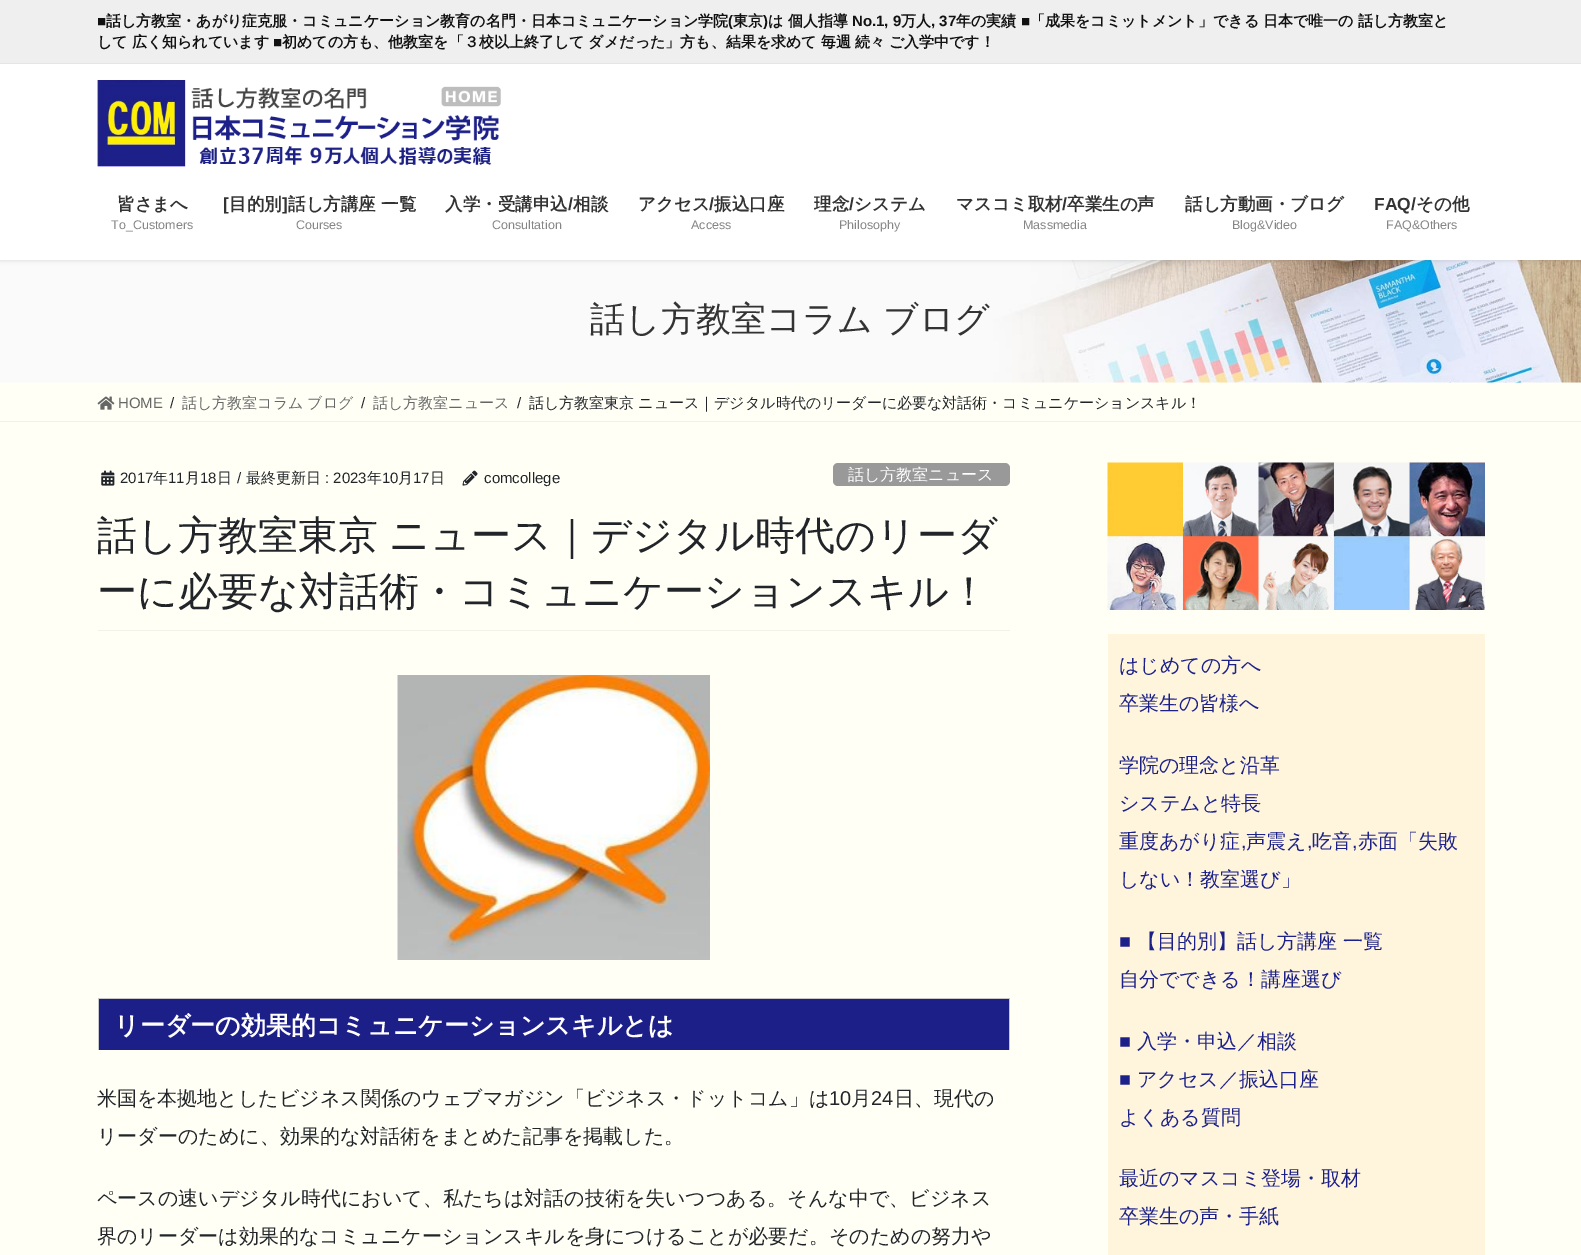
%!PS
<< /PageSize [1581 1255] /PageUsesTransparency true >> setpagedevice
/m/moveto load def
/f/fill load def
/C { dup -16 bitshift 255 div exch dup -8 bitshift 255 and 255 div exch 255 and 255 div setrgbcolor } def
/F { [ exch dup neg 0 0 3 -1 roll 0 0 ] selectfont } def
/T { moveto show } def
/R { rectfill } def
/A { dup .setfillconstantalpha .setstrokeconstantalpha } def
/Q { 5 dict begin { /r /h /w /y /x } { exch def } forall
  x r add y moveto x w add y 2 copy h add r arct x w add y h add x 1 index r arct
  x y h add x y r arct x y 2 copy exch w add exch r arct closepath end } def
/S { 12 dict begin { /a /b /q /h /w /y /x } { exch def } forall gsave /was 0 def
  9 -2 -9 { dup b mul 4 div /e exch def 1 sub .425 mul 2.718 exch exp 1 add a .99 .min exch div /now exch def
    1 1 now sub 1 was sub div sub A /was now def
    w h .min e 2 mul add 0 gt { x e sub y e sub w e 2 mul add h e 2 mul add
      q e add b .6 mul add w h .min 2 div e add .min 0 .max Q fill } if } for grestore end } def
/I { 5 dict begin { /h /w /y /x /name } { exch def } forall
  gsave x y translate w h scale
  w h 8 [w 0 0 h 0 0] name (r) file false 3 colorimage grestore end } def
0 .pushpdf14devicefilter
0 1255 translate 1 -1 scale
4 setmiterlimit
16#FFFFF6 C
0 0 1581 1255 R
(2.rgb) 0 260 1581 123 I
16#000000 C
0 -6 1581 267 0 2 .1 S
16#FFFFFF C
0 64 1581 196 R
16#EFEFEF C
0 0 1581 63 R
16#E5E5E5 C
0 63 1581 1 R
/LiberationSans-Bold 15 F
16#111111 C
(■) 97 26 T
/WenQuanYiZenHei-Bold 15 F
(話し方教室・あがり症克服・コミュニケーション教育の名門・日本コミュニケーション学院) 106 26 T
/LiberationSans-Bold 15 F
(\() 728 26 T
/WenQuanYiZenHei-Bold 15 F
(東京) 733 26 T
/LiberationSans-Bold 15 F
(\)) 763 26 T
/WenQuanYiZenHei-Bold 15 F
(は) 768 26 T
(個人指導) 788 26 T
/LiberationSans-Bold 15 F
(No.1, 9) 852 26 T
/WenQuanYiZenHei-Bold 15 F
(万人) 901 26 T
/LiberationSans-Bold 15 F
(, 37) 931 26 T
/WenQuanYiZenHei-Bold 15 F
(年の実績) 956 26 T
/LiberationSans-Bold 15 F
(■) 1021 26 T
/WenQuanYiZenHei-Bold 15 F
(「成果をコミットメント」できる) 1030 26 T
(日本で唯一の) 1263 26 T
(話し方教室と) 1358 26 T
97 47 m -.5 0 32 (して 広く知られています) widthshow
/LiberationSans-Bold 15 F
(■) 273 47 T
/WenQuanYiZenHei-Bold 15 F
282 47 m -.5 0 32 (初めての方も、他教室を「３校以上終了して ダメだった」方も、結果を求めて 毎週 続々 ご入学中です！) widthshow
(1.rgb) 97 80 404 87 I
/WenQuanYiZenHei-Bold 17.5 F
16#333333 C
(皆さまへ) 117 210 T
/LiberationSans-Regular 12.5 F
16#858585 C
(To_Customers) 111 229 T
/LiberationSans-Bold 17.5 F
16#333333 C
([) 223 210 T
/WenQuanYiZenHei-Bold 17.5 F
(目的別) 229 210 T
/LiberationSans-Bold 17.5 F
(]) 282 210 T
/WenQuanYiZenHei-Bold 17.5 F
(話し方講座 一覧) 288 210 T
/LiberationSans-Regular 12.5 F
16#858585 C
(Courses) 296 229 T
/WenQuanYiZenHei-Bold 17.5 F
16#333333 C
(入学・受講申込) 445 210 T
/LiberationSans-Bold 17.5 F
(/) 568 210 T
/WenQuanYiZenHei-Bold 17.5 F
(相談) 573 210 T
/LiberationSans-Regular 12.5 F
16#858585 C
(Consultation) 492 229 T
/WenQuanYiZenHei-Bold 17.5 F
16#333333 C
(アクセス) 638 210 T
/LiberationSans-Bold 17.5 F
(/) 709 210 T
/WenQuanYiZenHei-Bold 17.5 F
(振込口座) 714 210 T
/LiberationSans-Regular 12.5 F
16#858585 C
(Access) 691 229 T
/WenQuanYiZenHei-Bold 17.5 F
16#333333 C
(理念) 814 210 T
/LiberationSans-Bold 17.5 F
(/) 849 210 T
/WenQuanYiZenHei-Bold 17.5 F
(システム) 854 210 T
/LiberationSans-Regular 12.5 F
16#858585 C
(Philosophy) 839 229 T
/WenQuanYiZenHei-Bold 17.5 F
16#333333 C
(マスコミ取材) 956 210 T
/LiberationSans-Bold 17.5 F
(/) 1062 210 T
/WenQuanYiZenHei-Bold 17.5 F
(卒業生の声) 1067 210 T
/LiberationSans-Regular 12.5 F
16#858585 C
(Massmedia) 1023 229 T
/WenQuanYiZenHei-Bold 17.5 F
16#333333 C
(話し方動画・ブログ) 1185 210 T
/LiberationSans-Regular 12.5 F
16#858585 C
(Blog&Video) 1232 229 T
/LiberationSans-Bold 17.5 F
16#333333 C
(FAQ/) 1374 210 T
/WenQuanYiZenHei-Bold 17.5 F
(その他) 1416 210 T
/LiberationSans-Regular 12.5 F
16#858585 C
(FAQ&Others) 1386 229 T
/WenQuanYiZenHei-Medium 35 F
16#333333 C
590 331 m -1 0 32 (話し方教室コラム ブログ) widthshow
16#F2F2EA C
0 421 1581 1 R
(3.rgb) 97 396 18 14 I
/LiberationSans-Regular 15 F
16#666666 C
(HOME) 118 408 T
16#212529 C
(/) 170 408 T
/WenQuanYiZenHei-Medium 15 F
16#666666 C
182 408 m -.5 0 32 (話し方教室コラム ブログ) widthshow
/LiberationSans-Regular 15 F
16#212529 C
(/) 361 408 T
/WenQuanYiZenHei-Medium 15 F
16#666666 C
(話し方教室ニュース) 373 408 T
/LiberationSans-Regular 15 F
16#212529 C
(/) 517 408 T
/WenQuanYiZenHei-Medium 15 F
529 408 m -.5 0 32 (話し方教室東京 ニュース｜デジタル時代のリーダーに必要な対話術・コミュニケーションスキル！) widthshow
16#F2F2EA C
98 630 912 1 R
(4.rgb) 101 470 14 16 I
/LiberationSans-Regular 15 F
16#212529 C
(2017) 120 483 T
/WenQuanYiZenHei-Medium 15 F
(年) 153 483 T
/LiberationSans-Regular 15 F
(11) 168 483 T
/WenQuanYiZenHei-Medium 15 F
(月) 185 483 T
/LiberationSans-Regular 15 F
(18) 200 483 T
/WenQuanYiZenHei-Medium 15 F
(日) 217 483 T
/LiberationSans-Regular 15 F
(/) 237 483 T
/WenQuanYiZenHei-Medium 15 F
(最終更新日) 246 483 T
/LiberationSans-Regular 15 F
(: 2023) 325 483 T
/WenQuanYiZenHei-Medium 15 F
(年) 367 483 T
/LiberationSans-Regular 15 F
(10) 382 483 T
/WenQuanYiZenHei-Medium 15 F
(月) 398 483 T
/LiberationSans-Regular 15 F
(17) 413 483 T
/WenQuanYiZenHei-Medium 15 F
(日) 430 483 T
(5.rgb) 462 470 16 16 I
/LiberationSans-Regular 15 F
(comcollege) 484 483 T
16#999999 C
833 463 177 23 5 Q f
/WenQuanYiZenHei-Medium 16 F
16#FFFFFF C
(話し方教室ニュース) 848 480 T
/WenQuanYiZenHei-Medium 40 F
16#212529 C
97 549 m -1 0 32 (話し方教室東京 ニュース｜デジタル時代のリーダ) widthshow
(ーに必要な対話術・コミュニケーションスキル！) 97 605 T
(6.rgb) 397 675 313 285 I
16#1D1F89 C
99 999 910 51 R
16#C8C8C8 C
98 998 912 1 R
1009 998 1 52 R
98 998 1 52 R
/WenQuanYiZenHei-Bold 25 F
16#FFFFFF C
(リーダーの効果的コミュニケーションスキルとは) 114 1034 T
/WenQuanYiZenHei-Medium 20 F
16#212529 C
(米国を本拠地としたビジネス関係のウェブマガジン「ビジネス・ドットコム」は) 97 1105 T
/LiberationSans-Regular 20 F
(10) 829 1105 T
/WenQuanYiZenHei-Medium 20 F
(月) 851 1105 T
/LiberationSans-Regular 20 F
(24) 871 1105 T
/WenQuanYiZenHei-Medium 20 F
(日、現代の) 894 1105 T
(リーダーのために、効果的な対話術をまとめた記事を掲載した。) 97 1143 T
(ペースの速いデジタル時代において、私たちは対話の技術を失いつつある。そんな中で、ビジネス) 97 1205 T
(界のリーダーは効果的なコミュニケーションスキルを身につけることが必要だ。そのための努力や) 97 1243 T
(7.rgb) 1107 462 378 148 I
16#FFF5DC C
1108 634 377 621 R
16#1C2189 C
(はじめての方へ) 1119 672 T
(卒業生の皆様へ) 1119 710 T
(学院の理念と沿革) 1119 772 T
(システムと特長) 1119 810 T
(重度あがり症) 1119 848 T
/LiberationSans-Regular 20 F
(,) 1241 848 T
/WenQuanYiZenHei-Medium 20 F
(声震え) 1246 848 T
/LiberationSans-Regular 20 F
(,) 1307 848 T
/WenQuanYiZenHei-Medium 20 F
(吃音) 1312 848 T
/LiberationSans-Regular 20 F
(,) 1352 848 T
/WenQuanYiZenHei-Medium 20 F
(赤面「失敗) 1358 848 T
(しない！教室選び」) 1119 886 T
/LiberationSans-Regular 20 F
(■) 1119 948 T
/WenQuanYiZenHei-Medium 20 F
(【目的別】話し方講座 一覧) 1137 948 T
(自分でできる！講座選び) 1119 986 T
/LiberationSans-Regular 20 F
(■) 1119 1048 T
/WenQuanYiZenHei-Medium 20 F
(入学・申込／相談) 1137 1048 T
/LiberationSans-Regular 20 F
(■) 1119 1086 T
/WenQuanYiZenHei-Medium 20 F
(アクセス／振込口座) 1137 1086 T
(よくある質問) 1119 1124 T
(最近のマスコミ登場・取材) 1119 1185 T
(卒業生の声・手紙) 1119 1223 T
.poppdf14devicefilter showpage
